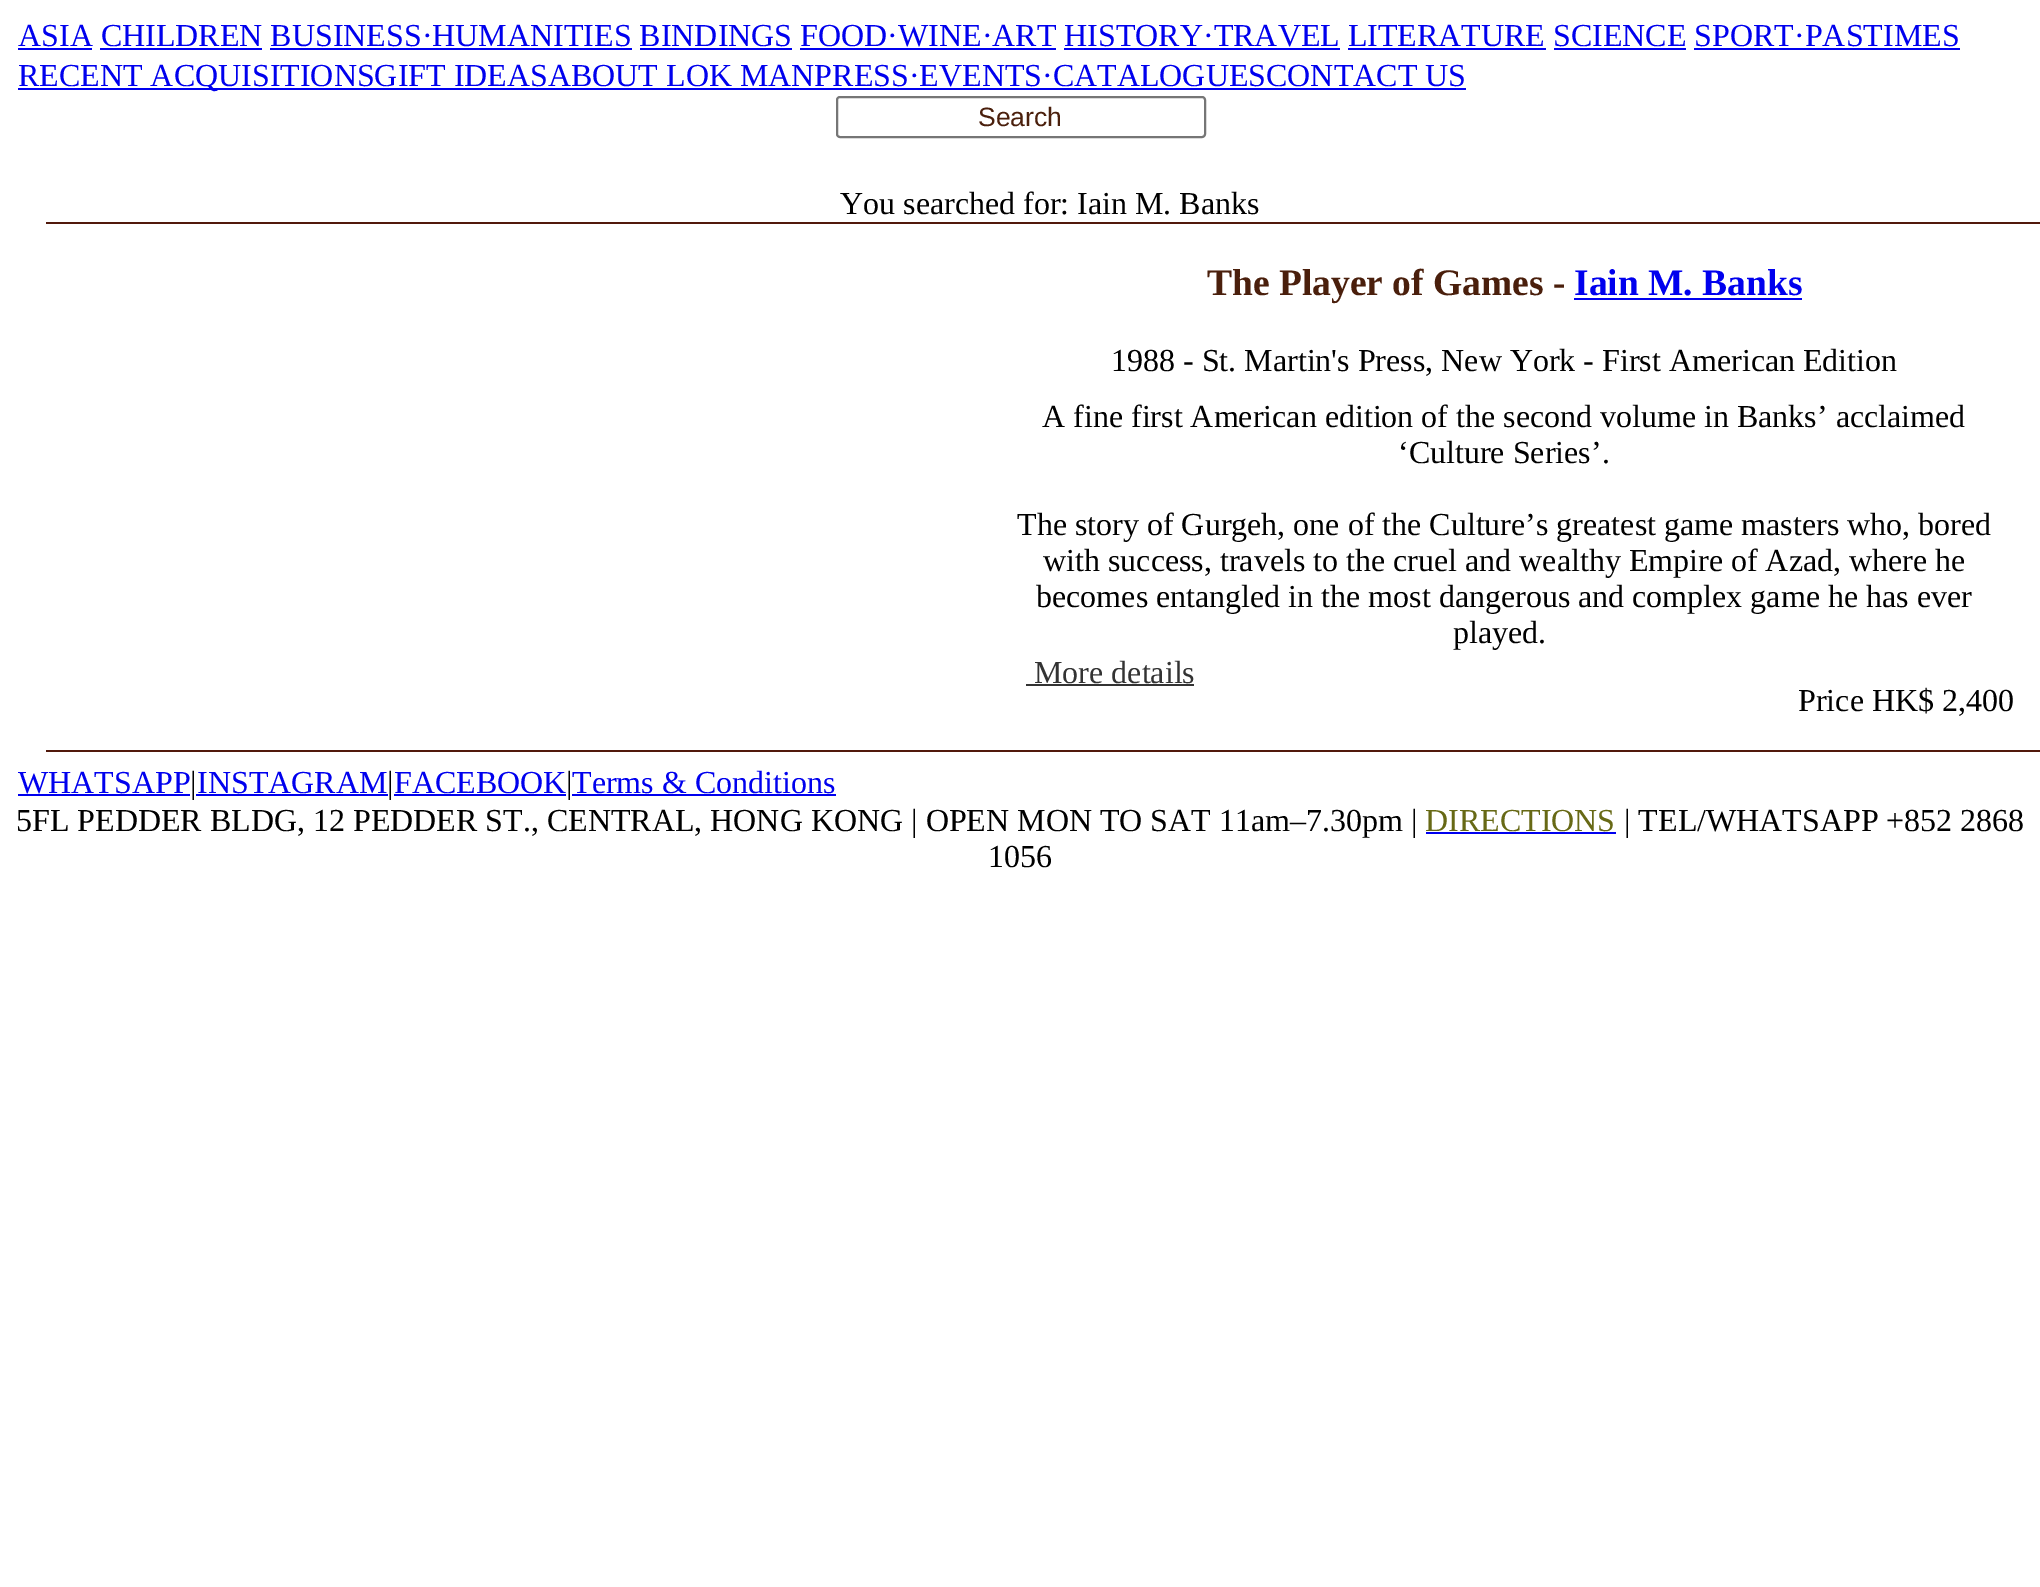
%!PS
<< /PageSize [2040 1587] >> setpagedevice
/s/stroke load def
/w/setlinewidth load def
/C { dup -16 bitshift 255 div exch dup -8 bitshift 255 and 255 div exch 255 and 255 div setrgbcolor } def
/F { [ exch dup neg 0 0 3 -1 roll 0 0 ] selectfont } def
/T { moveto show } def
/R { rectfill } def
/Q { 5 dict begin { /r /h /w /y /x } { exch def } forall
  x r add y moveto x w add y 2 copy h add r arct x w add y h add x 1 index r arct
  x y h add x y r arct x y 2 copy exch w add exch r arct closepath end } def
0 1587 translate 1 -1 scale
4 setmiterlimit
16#FFFFFF C
0 0 2040 1587 R
/LiberationSerif-Regular 32 F
16#0000EE C
(ASIA CHILDREN BUSINESS·HUMANITIES BINDINGS FOOD·WINE·ART HISTORY·TRAVEL LITERATURE SCIENCE SPORT·PASTIMES) 18 46 T
18 48 74 2 R
100 48 162 2 R
270 48 362 2 R
640 48 152 2 R
800 48 256 2 R
1064 48 276 2 R
1348 48 198 2 R
1554 48 132 2 R
1694 48 266 2 R
18 88 1448 2 R
(RECENT ACQUISITIONSGIFT IDEASABOUT LOK MANPRESS·EVENTS·CATALOGUESCONTACT US) 18 86 T
16#767676 C
2 w
837 97 368 40 3 Q s
/LiberationSans-Regular 26.5 F
16#4A1F0C C
(Search) 978 126 T
/LiberationSerif-Regular 32 F
16#000000 C
(You searched for: Iain M. Banks) 840 214 T
16#51190C C
46 222 1994 2 R
46 750 1994 2 R
/LiberationSerif-Bold 37.5 F
16#4A1F0C C
(The Player of Games -) 1207 295 T
16#0000EE C
(Iain M. Banks) 1574 295 T
1574 298 228 2 R
/LiberationSerif-Regular 32 F
16#000000 C
(1988 - St. Martin's Press, New York - First American Edition) 1111 371 T
(A fine first American edition of the second volume in Banks’ acclaimed) 1042 427 T
(‘Culture Series’.) 1398 463 T
(The story of Gurgeh, one of the Culture’s greatest game masters who, bored) 1017 535 T
(with success, travels to the cruel and wealthy Empire of Azad, where he) 1043 571 T
(becomes entangled in the most dangerous and complex game he has ever) 1036 607 T
(played.) 1453 643 T
16#333333 C
(More details) 1034 683 T
1026 684 168 2 R
16#000000 C
(Price HK$ 2,400) 1798 711 T
16#0000EE C
(WHATSAPP) 18 793 T
18 794 172 2 R
16#000000 C
(|) 190 793 T
16#0000EE C
(INSTAGRAM) 197 793 T
196 794 192 2 R
16#000000 C
(|) 387 793 T
16#0000EE C
(FACEBOOK) 394 793 T
394 794 172 2 R
16#000000 C
(|) 566 793 T
16#0000EE C
(Terms & Conditions) 572 793 T
572 794 264 2 R
16#000000 C
(5FL PEDDER BLDG, 12 PEDDER ST., CENTRAL, HONG KONG | OPEN MON TO SAT 11am–7.30pm |) 16 831 T
16#676915 C
(DIRECTIONS) 1425 831 T
16#0000EE C
1426 832 190 2 R
16#000000 C
(| TEL/WHATSAPP +852 2868) 1624 831 T
(1056) 988 867 T
showpage
